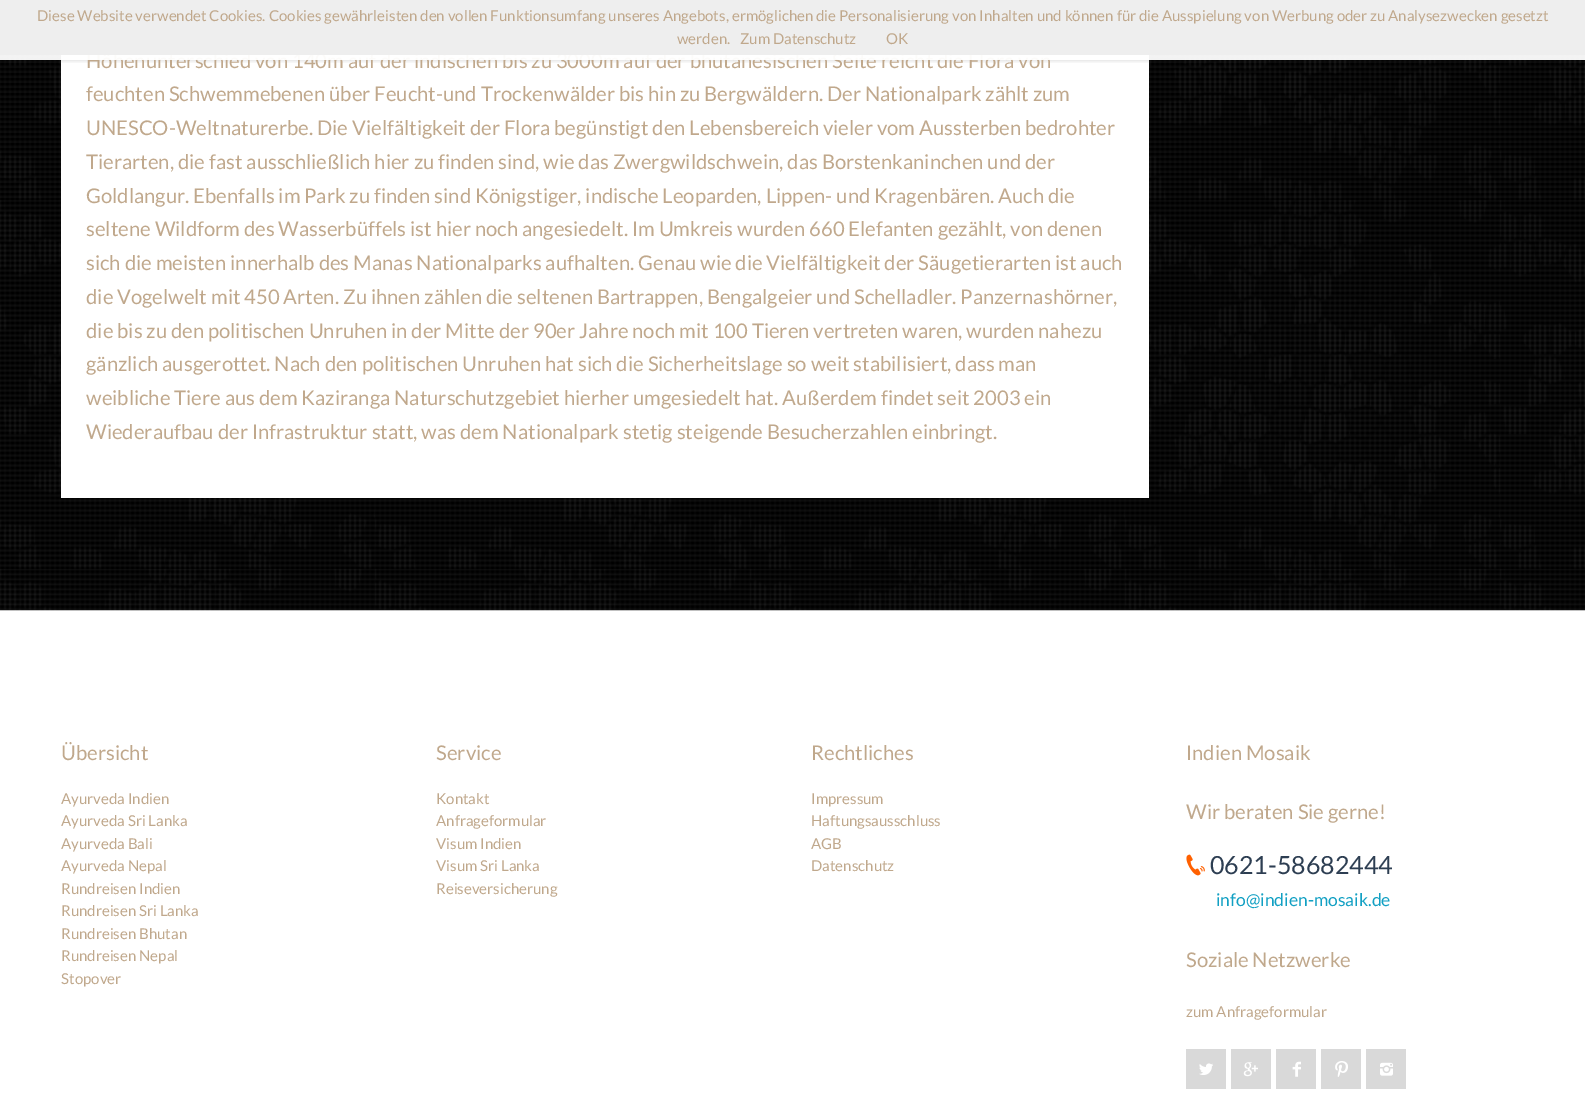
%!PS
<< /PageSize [1585 1115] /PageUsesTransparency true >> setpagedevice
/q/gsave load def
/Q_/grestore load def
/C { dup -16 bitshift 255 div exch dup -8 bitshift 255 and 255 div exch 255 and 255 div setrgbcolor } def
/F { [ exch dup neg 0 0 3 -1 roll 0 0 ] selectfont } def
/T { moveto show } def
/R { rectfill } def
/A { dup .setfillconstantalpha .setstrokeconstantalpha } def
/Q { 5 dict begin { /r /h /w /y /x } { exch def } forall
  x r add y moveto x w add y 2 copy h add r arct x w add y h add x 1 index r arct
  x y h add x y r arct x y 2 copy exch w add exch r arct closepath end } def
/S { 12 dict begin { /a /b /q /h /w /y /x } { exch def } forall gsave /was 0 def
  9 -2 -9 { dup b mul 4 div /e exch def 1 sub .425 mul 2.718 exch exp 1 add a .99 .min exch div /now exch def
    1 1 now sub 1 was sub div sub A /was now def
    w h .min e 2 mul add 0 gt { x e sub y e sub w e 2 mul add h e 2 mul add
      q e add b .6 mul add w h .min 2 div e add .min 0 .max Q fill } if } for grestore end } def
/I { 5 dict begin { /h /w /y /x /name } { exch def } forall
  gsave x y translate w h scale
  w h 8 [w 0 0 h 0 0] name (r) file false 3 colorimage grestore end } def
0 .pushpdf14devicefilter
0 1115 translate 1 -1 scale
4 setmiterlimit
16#FFFFFF C
0 0 1585 1115 R
(1.rgb) 0 55 1585 556 I
61 55 1088 443 R
q
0 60 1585 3 rectclip
16#000000 C
0 1 1585 60 0 2 .12 S
Q_
/Lato-Regular 20.25 F
16#C0A88C C
(Höhenunterschied von 140m auf der indischen bis zu 3000m auf der bhutanesischen Seite reicht die Flora von) 86 68 T
0.95 A
16#FFFFFF C
0 55 1585 5 R
1 A
16#EEEEEE C
0 0 1585 55 R
/Lato-Regular 15 F
16#C0A88C C
(Diese Website verwendet Cookies. Cookies gewährleisten den vollen Funktionsumfang unseres Angebots, ermöglichen die Personalisierung von Inhalten und können für die Ausspielung von Werbung oder zu Analysezwecken gesetzt) 37 21 T
(werden.) 677 44 T
(Zum Datenschutz) 740 44 T
(OK) 886 44 T
/Lato-Regular 20.25 F
(feuchten Schwemmebenen über Feucht-und Trockenwälder bis hin zu Bergwäldern. Der Nationalpark zählt zum) 86 101 T
(UNESCO-Weltnaturerbe. Die Vielfältigkeit der Flora begünstigt den Lebensbereich vieler vom Aussterben bedrohter) 86 135 T
(Tierarten, die fast ausschließlich hier zu finden sind, wie das Zwergwildschwein, das Borstenkaninchen und der) 86 169 T
(Goldlangur. Ebenfalls im Park zu finden sind Königstiger, indische Leoparden, Lippen- und Kragenbären. Auch die) 86 203 T
(seltene Wildform des Wasserbüffels ist hier noch angesiedelt. Im Umkreis wurden 660 Elefanten gezählt, von denen) 86 236 T
(sich die meisten innerhalb des Manas Nationalparks aufhalten. Genau wie die Vielfältigkeit der Säugetierarten ist auch) 86 270 T
(die Vogelwelt mit 450 Arten. Zu ihnen zählen die seltenen Bartrappen, Bengalgeier und Schelladler. Panzernashörner,) 86 304 T
(die bis zu den politischen Unruhen in der Mitte der 90er Jahre noch mit 100 Tieren vertreten waren, wurden nahezu) 86 338 T
(gänzlich ausgerottet. Nach den politischen Unruhen hat sich die Sicherheitslage so weit stabilisiert, dass man) 86 371 T
(weibliche Tiere aus dem Kaziranga Naturschutzgebiet hierher umgesiedelt hat. Außerdem findet seit 2003 ein) 86 405 T
(Wiederaufbau der Infrastruktur statt, was dem Nationalpark stetig steigende Besucherzahlen einbringt.) 86 439 T
(Übersicht) 61 760 T
/Lato-Regular 15 F
(Ayurveda Indien) 61 804 T
(Ayurveda Sri Lanka) 61 826 T
(Ayurveda Bali) 61 849 T
(Ayurveda Nepal) 61 871 T
(Rundreisen Indien) 61 894 T
(Rundreisen Sri Lanka) 61 916 T
(Rundreisen Bhutan) 61 939 T
(Rundreisen Nepal) 61 961 T
(Stopover) 61 984 T
/Lato-Regular 20.25 F
(Service) 436 760 T
/Lato-Regular 15 F
(Kontakt) 436 804 T
(Anfrageformular) 436 826 T
(Visum Indien) 436 849 T
(Visum Sri Lanka) 436 871 T
(Reiseversicherung) 436 894 T
/Lato-Regular 20.25 F
(Rechtliches) 811 760 T
/Lato-Regular 15 F
(Impressum) 811 804 T
(Haftungsausschluss) 811 826 T
(AGB) 811 849 T
(Datenschutz) 811 871 T
/Lato-Regular 20.25 F
(Indien Mosaik) 1186 760 T
(Wir beraten Sie gerne!) 1186 819 T
(2.rgb) 1186 854 19 22 I
/Lato-Regular 25 F
16#2D3E52 C
(0621-58682444) 1210 874 T
/Lato-Regular 17.5 F
16#12A0C3 C
(info@indien-mosaik.de) 1216 906 T
/Lato-Regular 20.25 F
16#C0A88C C
(Soziale Netzwerke) 1186 967 T
/Lato-Regular 15 F
(zum Anfrageformular) 1186 1017 T
16#D9D9D9 C
1186 1049 40 40 R
(3.rgb) 1199 1063 14 12 I
1231 1049 40 40 R
(4.rgb) 1243 1062 15 15 I
1276 1049 40 40 R
(5.rgb) 1292 1061 9 16 I
1321 1049 40 40 R
(6.rgb) 1335 1061 13 16 I
1366 1049 40 40 R
(7.rgb) 1380 1062 13 14 I
.poppdf14devicefilter showpage
